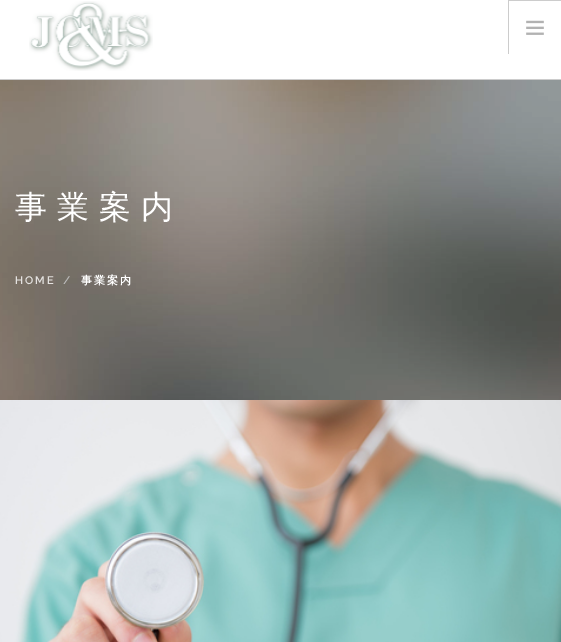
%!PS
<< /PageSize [561 642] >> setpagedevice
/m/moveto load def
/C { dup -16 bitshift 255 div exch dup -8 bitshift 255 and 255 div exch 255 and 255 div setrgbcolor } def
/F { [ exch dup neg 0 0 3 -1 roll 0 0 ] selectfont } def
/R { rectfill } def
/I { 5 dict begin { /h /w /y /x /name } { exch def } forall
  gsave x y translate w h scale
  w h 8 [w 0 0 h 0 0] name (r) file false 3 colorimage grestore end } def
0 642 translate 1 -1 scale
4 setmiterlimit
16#FFFFFF C
0 0 561 642 R
16#CCCCCC C
0 79 561 1 R
(1.rgb) 29 1 124 70 I
508 0 53 1 R
508 0 1 54 R
(2.rgb) 526 20 18 15 I
(3.rgb) 0 80 561 320 I
/WenQuanYiZenHei-Medium 32 F
16#FFFFFF C
15 218 m 10 0 (事業案内) ashow
/Raleway-SemiBold 11 F
16#E4E2E0 C
15 284 m 2 0 (HOME) ashow
16#BBBBBB C
63 284 m 2 0 (/) ashow
/WenQuanYiZenHei-Bold 11 F
16#FFFFFF C
81 284 m 2 0 (事業案内) ashow
(4.rgb) 0 400 561 242 I
showpage
